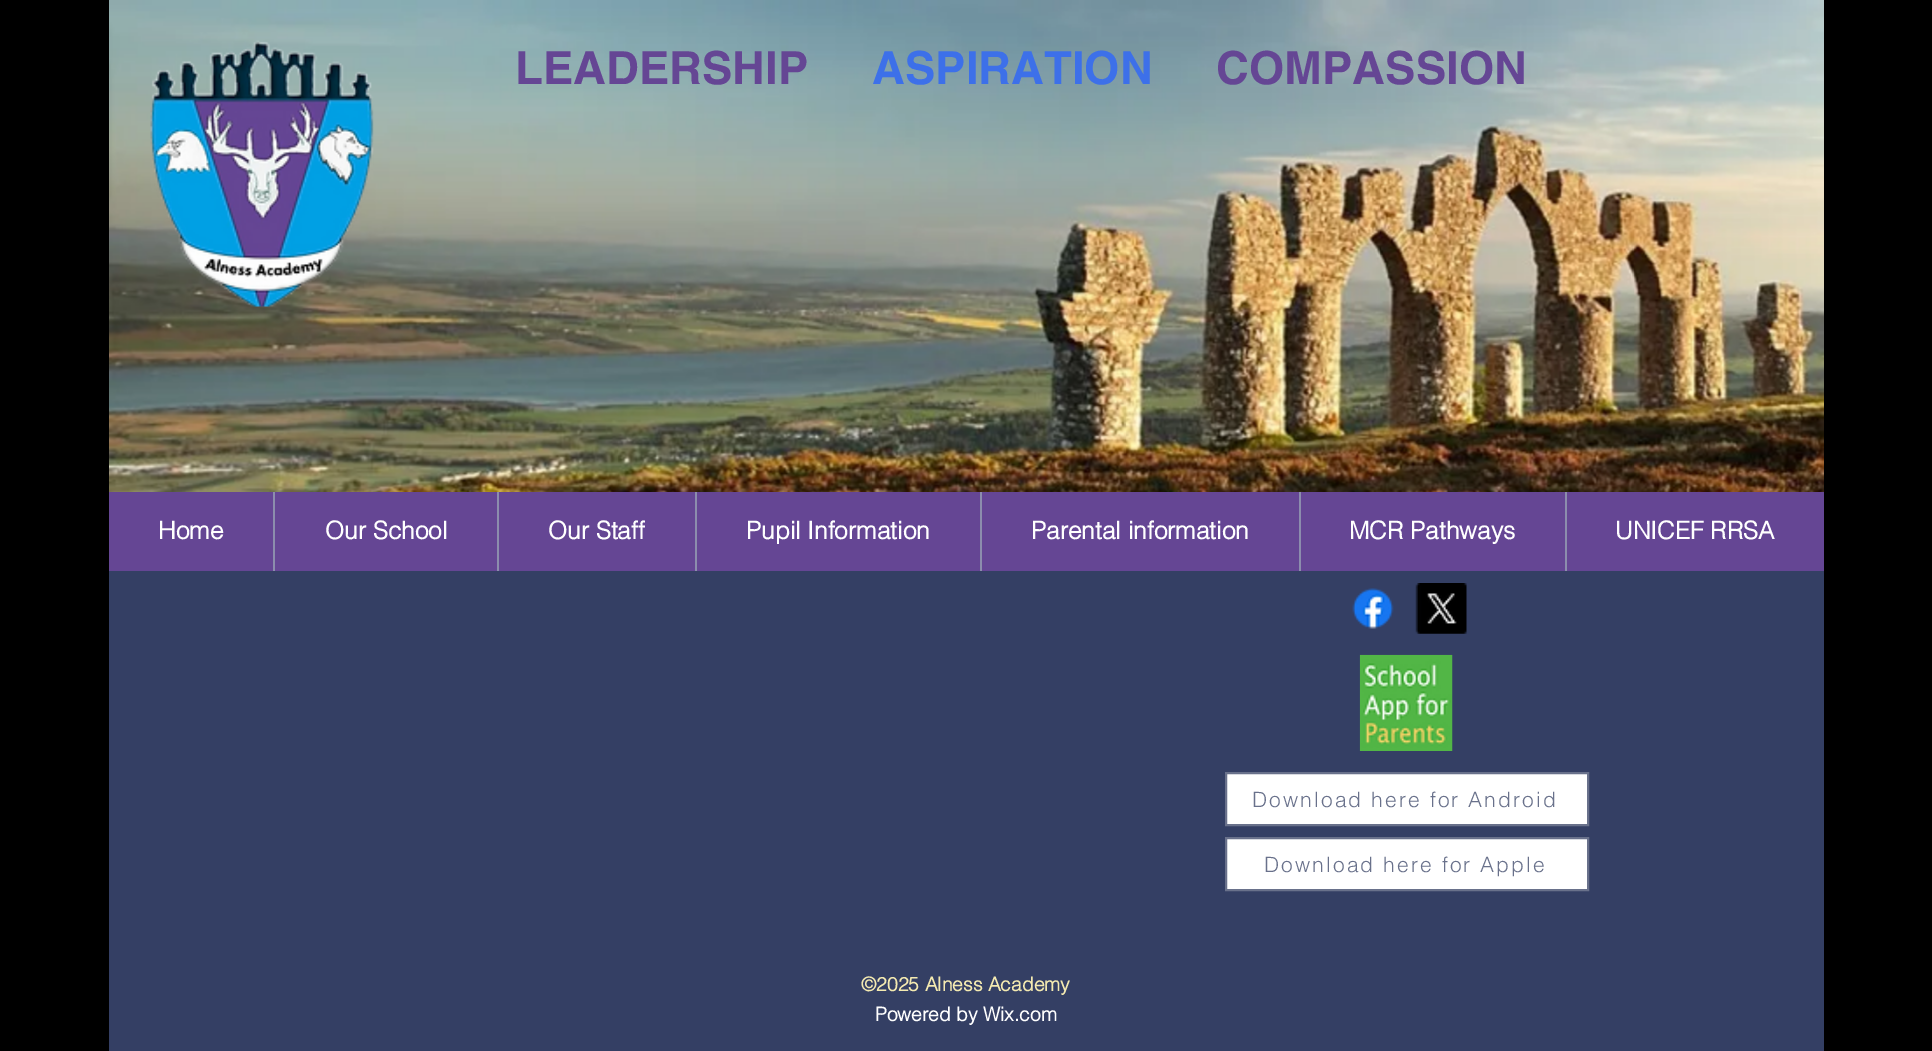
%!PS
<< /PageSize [1932 1051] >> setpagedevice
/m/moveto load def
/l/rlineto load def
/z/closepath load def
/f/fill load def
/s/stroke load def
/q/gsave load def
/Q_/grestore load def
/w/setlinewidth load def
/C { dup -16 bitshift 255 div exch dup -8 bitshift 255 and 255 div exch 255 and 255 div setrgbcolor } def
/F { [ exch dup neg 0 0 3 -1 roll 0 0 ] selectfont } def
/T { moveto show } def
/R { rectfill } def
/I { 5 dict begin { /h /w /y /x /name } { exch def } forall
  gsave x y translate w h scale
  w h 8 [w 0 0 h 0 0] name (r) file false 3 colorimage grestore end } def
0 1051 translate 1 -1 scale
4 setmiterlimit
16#000000 C
0 0 1932 1051 R
(1.rgb) 109 0 1715 492 I
(2.rgb) 150 40 224 267 I
/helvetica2-Bold 45.5 F
16#654694 C
(LEADERSHIP) 515 84 T
16#3D70E9 C
(ASPIRATION) 872 84 T
16#654694 C
(COMPASSION) 1216 84 T
109 492 1715 79 R
/helvetica-Bold 24.5 F
16#FFFFFF C
(Home) 158 539 T
16#8C8DAD C
273 492 2 79 R
16#FFFFFF C
(Our School) 325 539 T
16#8C8DAD C
497 492 2 79 R
16#FFFFFF C
(Our Staff) 548 539 T
16#8C8DAD C
695 492 2 79 R
16#FFFFFF C
(Pupil Information) 746 539 T
16#8C8DAD C
980 492 2 79 R
16#FFFFFF C
(Parental information) 1031 539 T
16#8C8DAD C
1299 492 2 79 R
16#FFFFFF C
(MCR Pathways) 1349 539 T
16#8C8DAD C
1565 492 2 79 R
16#FFFFFF C
(UNICEF RRSA) 1615 539 T
16#343F64 C
109 571 1715 480 R
(3.rgb) 1352 588 42 41 I
(4.rgb) 1415 583 52 51 I
(5.rgb) 1359 654 94 97 I
16#FFFFFF C
1226 773 m 362 0 l 0 52 l -362 0 l z q f Q_
16#69718B C
2 w
s
/helvetica-Light 21 F
1252 807 m 2.1 0 (Download here for Android) ashow
16#FFFFFF C
1226 838 m 362 0 l 0 52 l -362 0 l z q f Q_
16#69718B C
s
1264 872 m 2.1 0 (Download here for Apple) ashow
/helvetica-Bold 19.25 F
16#F4EAB1 C
(©2025 Alness Academy) 861 991 T
16#FFFFFF C
(Powered by Wix.com) 875 1021 T
showpage
